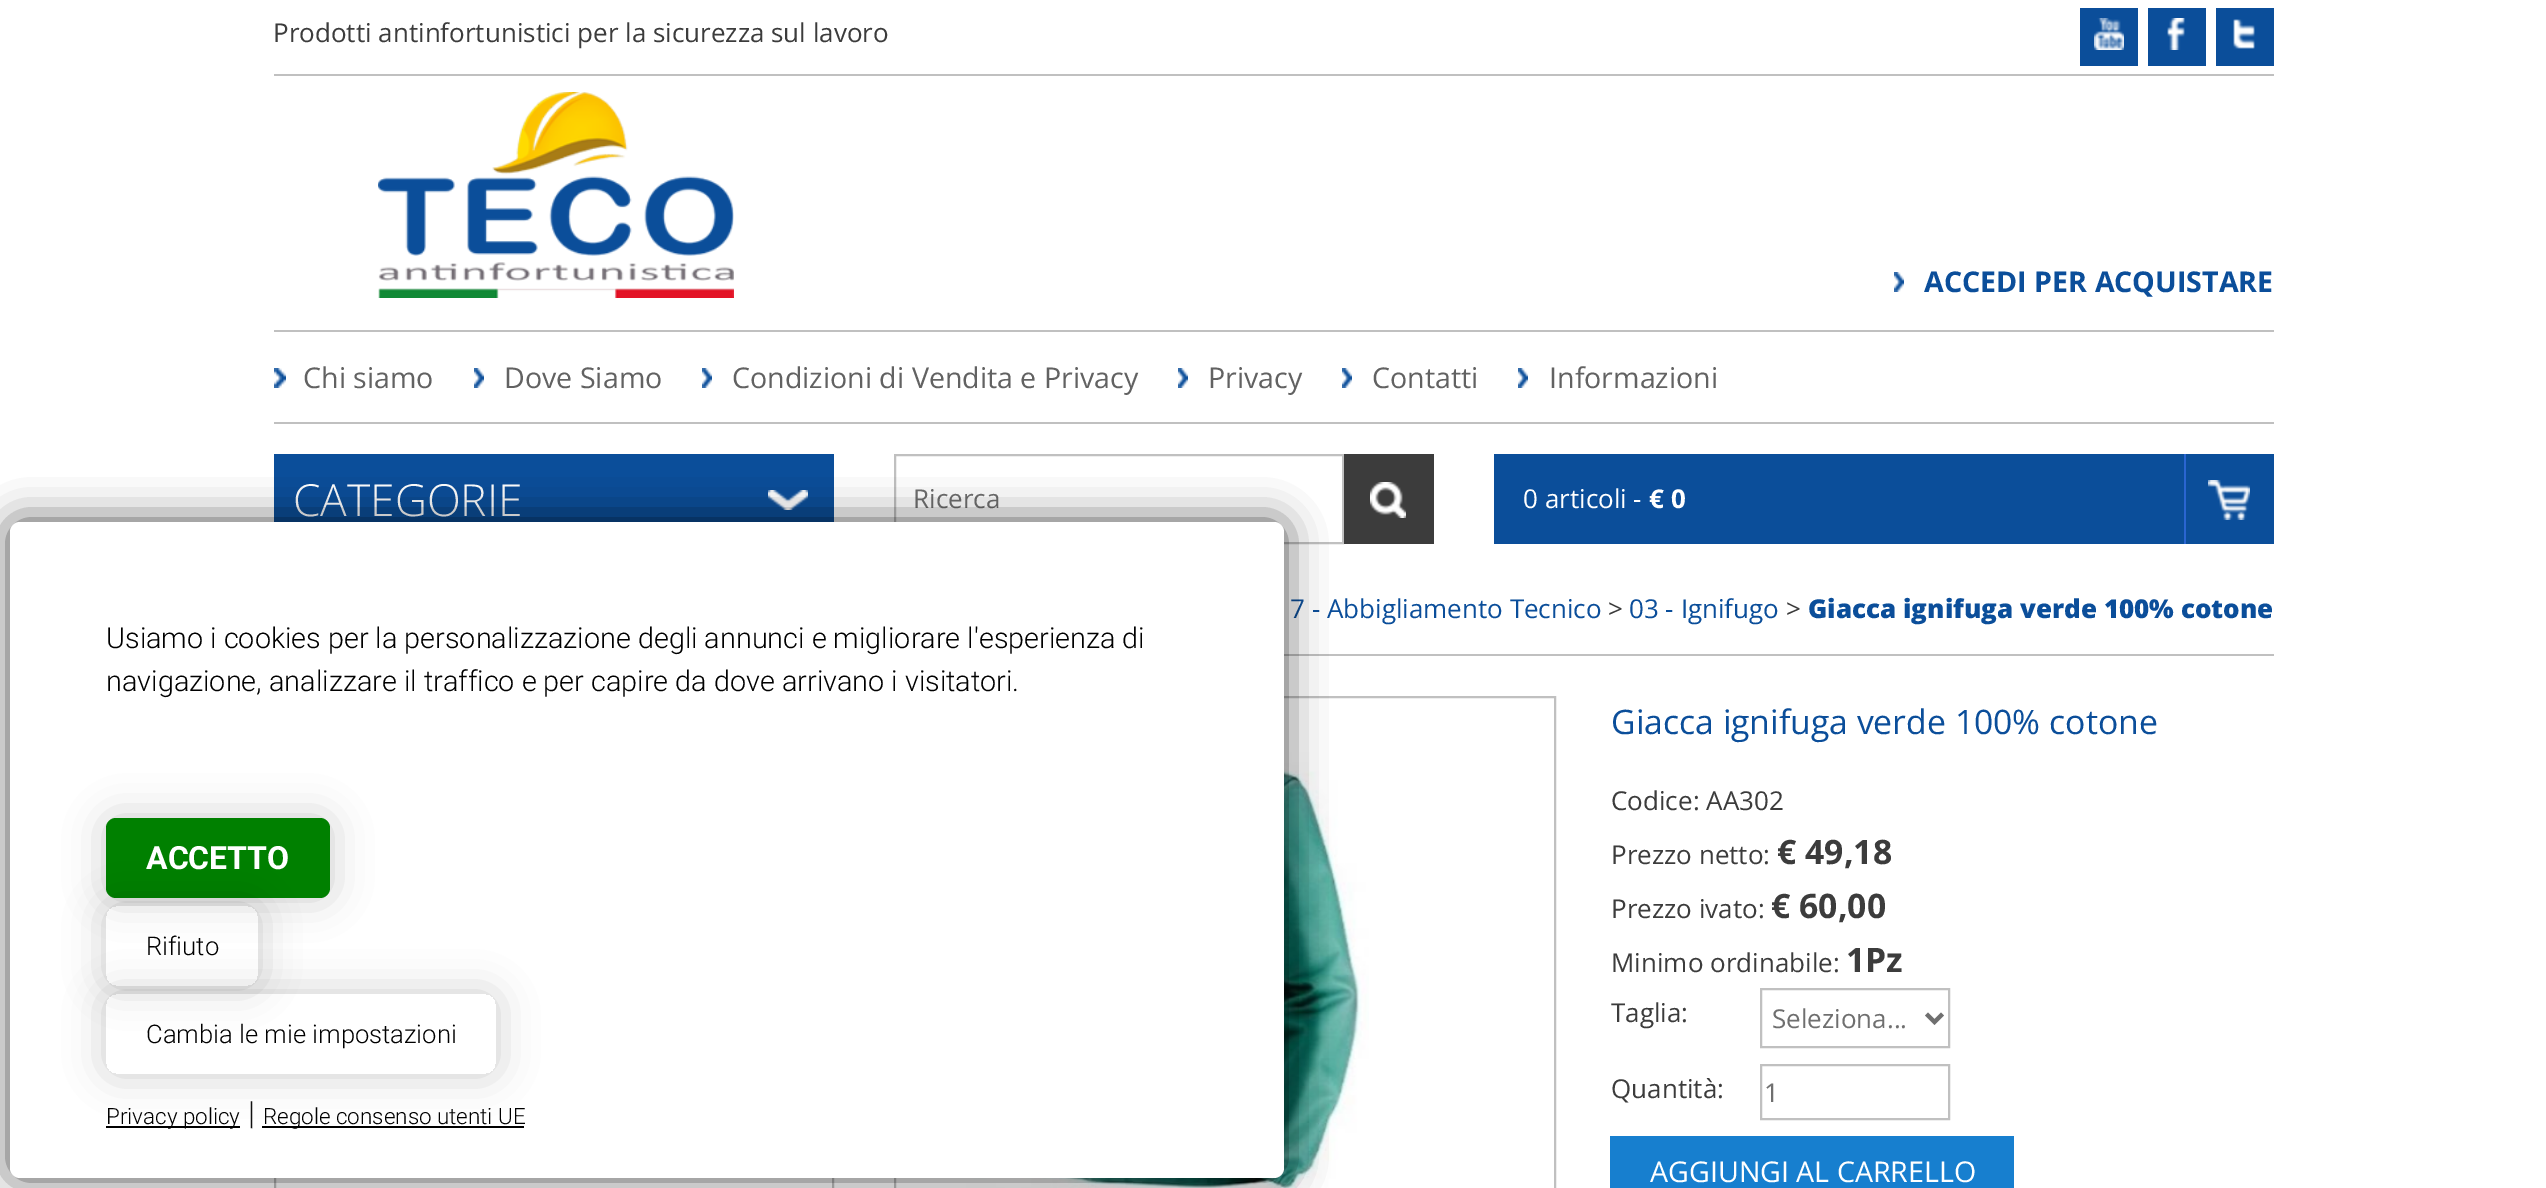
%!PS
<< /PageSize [2546 1188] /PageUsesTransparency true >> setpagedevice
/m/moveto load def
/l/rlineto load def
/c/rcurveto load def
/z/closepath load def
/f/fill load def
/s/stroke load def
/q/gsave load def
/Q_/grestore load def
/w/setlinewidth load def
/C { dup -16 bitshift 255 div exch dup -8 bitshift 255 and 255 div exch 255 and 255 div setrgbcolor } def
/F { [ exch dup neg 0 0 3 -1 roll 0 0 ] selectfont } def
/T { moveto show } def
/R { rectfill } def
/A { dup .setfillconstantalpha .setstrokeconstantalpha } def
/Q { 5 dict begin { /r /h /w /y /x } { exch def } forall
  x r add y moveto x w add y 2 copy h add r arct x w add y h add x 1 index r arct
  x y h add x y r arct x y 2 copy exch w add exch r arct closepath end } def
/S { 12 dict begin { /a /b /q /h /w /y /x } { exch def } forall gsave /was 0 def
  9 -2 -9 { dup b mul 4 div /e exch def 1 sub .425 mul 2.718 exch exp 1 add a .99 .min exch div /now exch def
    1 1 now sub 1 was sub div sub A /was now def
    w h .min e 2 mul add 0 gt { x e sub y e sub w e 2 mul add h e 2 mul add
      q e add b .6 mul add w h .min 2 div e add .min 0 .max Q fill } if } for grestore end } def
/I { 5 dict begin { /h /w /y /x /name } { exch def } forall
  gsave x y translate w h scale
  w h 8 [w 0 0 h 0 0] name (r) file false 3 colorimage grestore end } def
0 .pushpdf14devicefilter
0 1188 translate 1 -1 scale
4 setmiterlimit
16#FFFFFF C
0 0 2546 1188 R
16#C0C0C0 C
274 330 2000 2 R
274 74 2000 2 R
/OpenSans-Regular 26 F
16#3C3C3C C
(Prodotti antinfortunistici per la sicurezza sul lavoro) 273 42 T
16#0B4E9A C
2080 8 58 58 R
(1.rgb) 2094 18 30 32 I
2148 8 58 58 R
(2.rgb) 2167 18 18 32 I
2216 8 58 58 R
(3.rgb) 2233 19 22 30 I
(4.rgb) 378 92 356 206 I
(5.rgb) 1894 272 10 20 I
/OpenSans-Bold 28.6 F
(ACCEDI PER ACQUISTARE) 1924 292 T
16#C0C0C0 C
274 422 2000 2 R
(6.rgb) 274 368 12 20 I
/OpenSans-Regular 28.6 F
16#626262 C
(Chi siamo) 303 388 T
(5.rgb) 474 368 10 20 I
(Dove Siamo) 504 388 T
(5.rgb) 702 368 10 20 I
(Condizioni di Vendita e Privacy) 732 388 T
(5.rgb) 1178 368 10 20 I
(Privacy) 1208 388 T
(5.rgb) 1342 368 10 20 I
(Contatti) 1372 388 T
(5.rgb) 1518 368 10 20 I
(Informazioni) 1549 388 T
16#0B4E9A C
274 454 560 68 R
(7.rgb) 768 490 40 20 I
/OpenSans-Light 44.25 F
16#FFFFFF C
(CATEGORIE) 293 516 T
16#C0C0C0 C
2 w
895 455 448 88 rectstroke
/OpenSans-Regular 26 F
16#6F6F6F C
(Ricerca) 913 508 T
16#3C3C3C C
1344 454 90 90 R
(8.rgb) 1370 482 36 36 I
16#0B4E9A C
1494 454 780 90 R
16#FFFFFF C
(0 articoli -) 1523 508 T
/OpenSans-Bold 26 F
(€ 0) 1649 508 T
(9.rgb) 2208 480 42 40 I
16#2A65D1 C
2184 454 2 90 R
16#C0C0C0 C
275 545 558 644 rectstroke
1284 654 990 2 R
/OpenSans-Regular 26 F
16#0B4E9A C
(7 - Abbigliamento Tecnico) 1290 618 T
16#3C3C3C C
(>) 1608 618 T
16#0B4E9A C
(03 - Ignifugo) 1629 618 T
16#3C3C3C C
(>) 1786 618 T
/OpenSans-ExtraBold 26 F
16#0B4E9A C
(Giacca ignifuga verde 100% cotone) 1808 618 T
16#C0C0C0 C
895 697 660 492 rectstroke
(10.rgb) 951 716 418 472 I
/OpenSans-Regular 33.75 F
16#0B4E9A C
(Giacca ignifuga verde 100% cotone) 1611 734 T
/OpenSans-Regular 26 F
16#3C3C3C C
(Codice: AA302) 1611 810 T
(Prezzo netto:) 1611 864 T
/OpenSans-Bold 33.75 F
(€ 49,18) 1777 864 T
/OpenSans-Regular 26 F
(Prezzo ivato:) 1611 918 T
/OpenSans-Bold 33.75 F
(€ 60,00) 1771 918 T
/OpenSans-Regular 26 F
(Minimo ordinabile:) 1611 972 T
/OpenSans-Bold 33.75 F
(1Pz) 1846 972 T
/OpenSans-Regular 26 F
(Taglia:) 1611 1022 T
16#C0C0C0 C
1761 989 188 58 rectstroke
16#6F6F6F C
4 w
1926.5 1014 m 8 8 l 8 -8 l s
(Seleziona...) 1772 1028 T
16#3C3C3C C
(Quantità:) 1611 1098 T
16#C0C0C0 C
2 w
1761 1065 188 54 rectstroke
16#6F6F6F C
(1) 1764 1102 T
16#177FCF C
1610 1136 404 52 R
/OpenSans-Regular 28.6 F
16#FFFFFF C
(AGGIUNGI AL CARRELLO) 1650 1182 T
16#000000 C
10 522 1274 656 10 20 .7 S
16#FFFFFF C
10 522 1274 656 10 Q f
/Roboto-Light 28.8 F
16#000000 C
(Usiamo i cookies per la personalizzazione degli annunci e migliorare l'esperienza di) 106 648 T
(navigazione, analizzare il traffico e per capire da dove arrivano i visitatori.) 106 691 T
106 818 224 80 10 20 .2 S
16#008000 C
106 818 224 80 10 Q f
q
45 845 m 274 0 l 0 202 l -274 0 l z 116 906 m 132 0 l 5.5 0 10 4.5 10 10 c 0 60 l 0 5.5 -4.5 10 -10 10 c -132 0 l -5.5 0 -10 -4.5 -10 -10 c 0 -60 l 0 -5.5 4.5 -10 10 -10 c z eoclip newpath
16#000000 C
106 906 152 80 10 20 .2 S
Q_
/Roboto-Bold 32 F
16#FFFFFF C
(ACCETTO) 146 869 T
q
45 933 m 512 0 l 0 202 l -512 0 l z 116 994 m 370 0 l 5.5 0 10 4.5 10 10 c 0 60 l 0 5.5 -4.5 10 -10 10 c -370 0 l -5.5 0 -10 -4.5 -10 -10 c 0 -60 l 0 -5.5 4.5 -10 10 -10 c z eoclip newpath
16#000000 C
106 994 390 80 10 20 .2 S
Q_
/Roboto-Light 25.6 F
16#000000 C
(Rifiuto) 146 955 T
(Cambia le mie impostazioni) 146 1043 T
106 1126 134 2 R
/Roboto-Light 22.4 F
(Privacy policy) 106 1124 T
/Roboto-Light 32 F
16#111111 C
(|) 248 1124 T
16#000000 C
262 1126 262 2 R
/Roboto-Light 22.4 F
(Regole consenso utenti UE) 263 1124 T
.poppdf14devicefilter showpage
